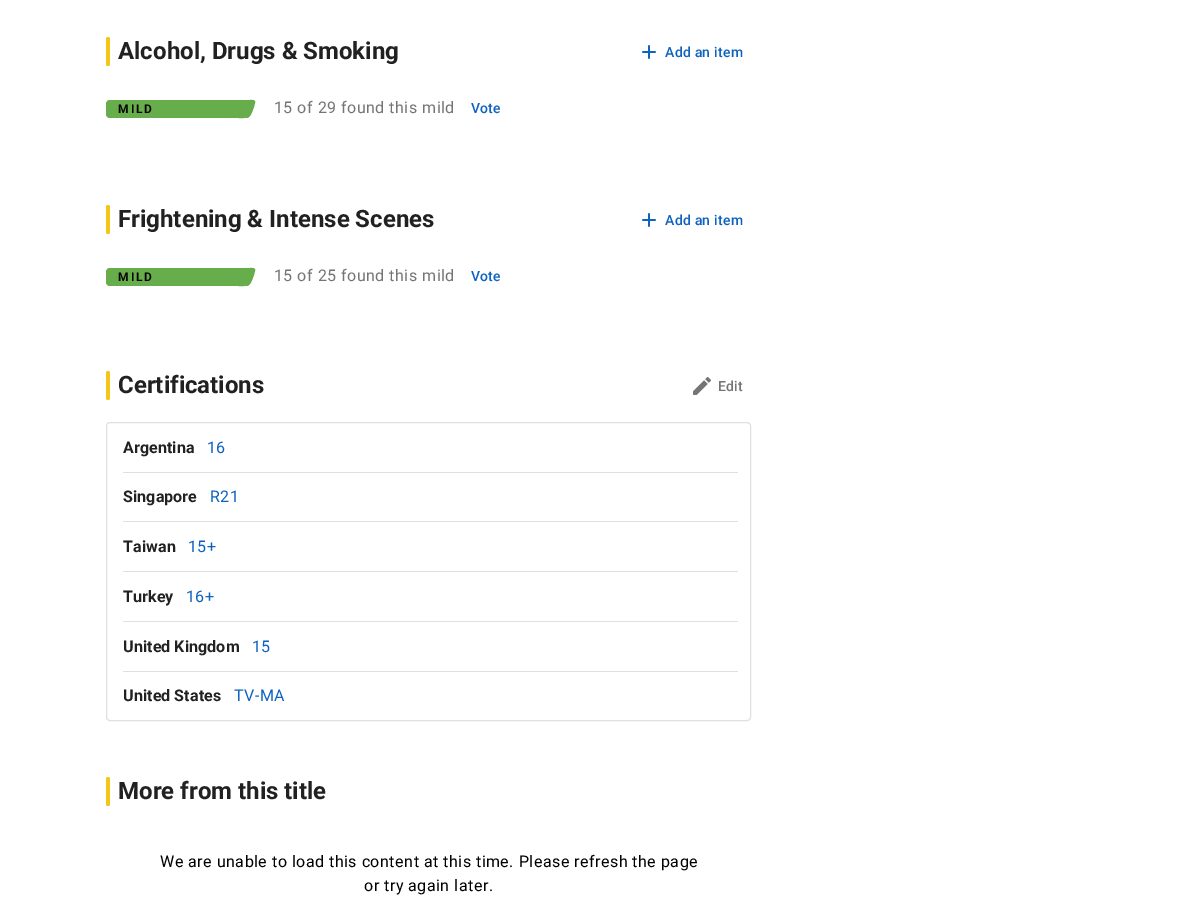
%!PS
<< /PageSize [1204 910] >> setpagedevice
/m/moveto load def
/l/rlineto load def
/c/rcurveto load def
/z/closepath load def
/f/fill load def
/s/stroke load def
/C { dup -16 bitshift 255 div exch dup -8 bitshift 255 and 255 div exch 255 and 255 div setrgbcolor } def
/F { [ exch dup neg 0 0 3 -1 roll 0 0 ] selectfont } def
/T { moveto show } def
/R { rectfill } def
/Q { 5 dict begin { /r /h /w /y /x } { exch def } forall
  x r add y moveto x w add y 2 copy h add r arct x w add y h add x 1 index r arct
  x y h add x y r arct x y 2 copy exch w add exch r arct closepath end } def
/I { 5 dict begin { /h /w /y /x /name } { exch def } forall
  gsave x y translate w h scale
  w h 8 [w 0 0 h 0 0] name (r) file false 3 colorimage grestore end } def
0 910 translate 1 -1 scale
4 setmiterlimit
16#FFFFFF C
0 0 1204 910 R
16#F5C518 C
106 37 4 29 2 Q f
/Roboto-Bold 24 F
16#212121 C
(Alcohol, Drugs & Smoking) 118 59 T
(1.rgb) 642 45 14 14 I
/Roboto-Medium 14 F
16#0E63BE C
665 57 m .25 0 (Add an item) ashow
16#67AD4B C
106 100 144 18 4 Q f
/Roboto-SemiBold 12 F
16#000000 C
118 113 m 2 0 (MILD) ashow
16#67AD4B C
244.5 100 m 5.5 0 l 2 0 6 -.5 5 3 c -1 4 l -4.5 12 -4 11 -16 11 c z f
/Roboto-Regular 16 F
16#757575 C
274 113 m .5 0 (15 of 29 found this mild) ashow
/Roboto-Medium 14 F
16#0E63BE C
471 113 m .25 0 (Vote) ashow
16#F5C518 C
106 205 4 29 2 Q f
/Roboto-Bold 24 F
16#212121 C
(Frightening & Intense Scenes) 118 227 T
(1.rgb) 642 213 14 14 I
/Roboto-Medium 14 F
16#0E63BE C
665 225 m .25 0 (Add an item) ashow
16#67AD4B C
106 268 144 18 4 Q f
/Roboto-SemiBold 12 F
16#000000 C
118 281 m 2 0 (MILD) ashow
16#67AD4B C
244.5 268 m 5.5 0 l 2 0 6 -.5 5 3 c -1 4 l -4.5 12 -4 11 -16 11 c z f
/Roboto-Regular 16 F
16#757575 C
274 281 m .5 0 (15 of 25 found this mild) ashow
/Roboto-Medium 14 F
16#0E63BE C
471 281 m .25 0 (Vote) ashow
16#F5C518 C
106 371 4 29 2 Q f
/Roboto-Bold 24 F
16#212121 C
(Certifications) 118 393 T
(2.rgb) 693 377 18 18 I
/Roboto-Medium 14 F
16#757575 C
718 391 m .25 0 (Edit) ashow
16#E0E0E0 C
106.5 422.5 644 298 3.5 Q s
/Roboto-Bold 16 F
16#212121 C
123 453 m .1 0 (Argentina) ashow
/Roboto-Regular 16 F
16#0E63BE C
207 453 m .5 0 (16) ashow
16#E0E0E0 C
123 472 615 1 R
/Roboto-Bold 16 F
16#212121 C
123 502 m .1 0 (Singapore) ashow
/Roboto-Regular 16 F
16#0E63BE C
210 502 m .5 0 (R21) ashow
16#E0E0E0 C
123 521 615 1 R
/Roboto-Bold 16 F
16#212121 C
123 552 m .1 0 (Taiwan) ashow
/Roboto-Regular 16 F
16#0E63BE C
188 552 m .5 0 (15+) ashow
16#E0E0E0 C
123 571 615 1 R
/Roboto-Bold 16 F
16#212121 C
123 602 m .1 0 (Turkey) ashow
/Roboto-Regular 16 F
16#0E63BE C
186 602 m .5 0 (16+) ashow
16#E0E0E0 C
123 621 615 1 R
/Roboto-Bold 16 F
16#212121 C
123 652 m .1 0 (United Kingdom) ashow
/Roboto-Regular 16 F
16#0E63BE C
252 652 m .5 0 (15) ashow
16#E0E0E0 C
123 671 615 1 R
/Roboto-Bold 16 F
16#212121 C
123 701 m .1 0 (United States) ashow
/Roboto-Regular 16 F
16#0E63BE C
234 701 m .5 0 (TV-MA) ashow
16#F5C518 C
106 777 4 29 2 Q f
/Roboto-Bold 24 F
16#212121 C
(More from this title) 118 799 T
/Roboto-Regular 16 F
16#000000 C
160 867 m .5 0 (We are unable to load this content at this time. Please refresh the page) ashow
364 891 m .5 0 (or try again later.) ashow
showpage
